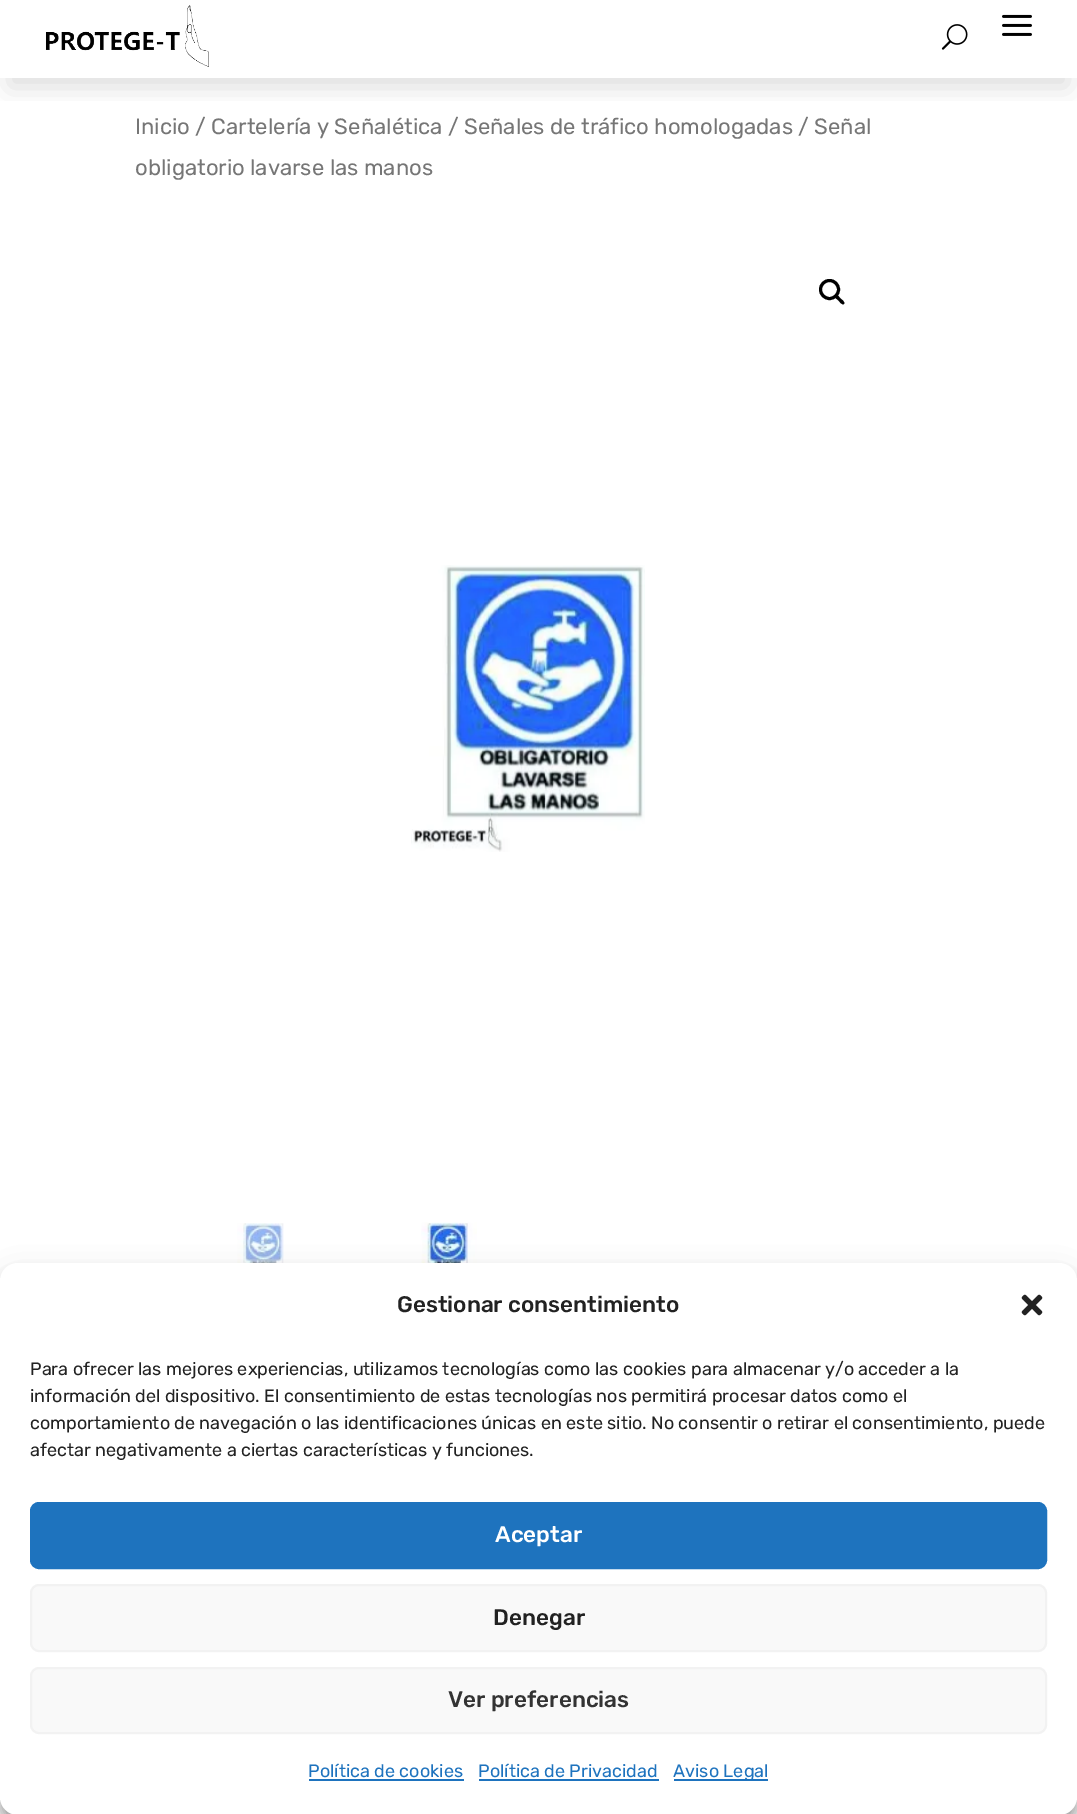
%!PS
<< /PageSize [1077 1814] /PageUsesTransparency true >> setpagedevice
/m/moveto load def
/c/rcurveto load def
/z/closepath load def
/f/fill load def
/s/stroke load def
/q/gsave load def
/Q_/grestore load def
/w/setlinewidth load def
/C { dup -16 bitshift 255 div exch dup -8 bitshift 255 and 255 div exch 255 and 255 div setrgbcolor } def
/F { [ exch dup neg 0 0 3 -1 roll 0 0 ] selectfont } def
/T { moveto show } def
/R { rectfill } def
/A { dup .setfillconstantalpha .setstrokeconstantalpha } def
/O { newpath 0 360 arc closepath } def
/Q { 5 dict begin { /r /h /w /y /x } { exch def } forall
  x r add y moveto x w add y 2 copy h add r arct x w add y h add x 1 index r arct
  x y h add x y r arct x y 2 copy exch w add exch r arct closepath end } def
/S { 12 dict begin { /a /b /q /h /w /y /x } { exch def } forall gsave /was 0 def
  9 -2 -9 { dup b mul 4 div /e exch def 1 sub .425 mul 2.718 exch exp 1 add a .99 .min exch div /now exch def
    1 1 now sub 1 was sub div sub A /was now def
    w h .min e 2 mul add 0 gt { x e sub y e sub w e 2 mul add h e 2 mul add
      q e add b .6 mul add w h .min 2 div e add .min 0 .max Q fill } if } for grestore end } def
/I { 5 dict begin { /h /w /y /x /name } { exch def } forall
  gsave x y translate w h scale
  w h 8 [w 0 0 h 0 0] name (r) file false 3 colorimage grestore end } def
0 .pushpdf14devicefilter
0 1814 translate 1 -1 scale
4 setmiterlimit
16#FFFFFF C
0 0 1077 1814 R
q
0 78 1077 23 rectclip
16#000000 C
9 27 1059 60 0 13.5 .14 S
Q_
(1.rgb) 45 5 164 62 I
(2.rgb) 941 24 27 26 I
(3.rgb) 1002 14 30 22 I
/Rubik-Light 22.1 F
16#767676 C
(Inicio / Cartelería y Señalética / Señales de tráfico homologadas / Señal) 135 134 T
(obligatorio lavarse las manos) 135 175 T
16#000000 C
3 w
829.5 289.5 9 O s
835.5 295.5 m 1.5 -2 4 2 5 3 c 1 1 5 3.5 3.5 5.5 c -2 1.5 -4.5 -2.5 -5.5 -3.5 c -1 -1 -5 -3.5 -3 -5 c z f
(4.rgb) 411 565 234 287 I
(5.rgb) 237 1223 47 40 I
(6.rgb) 421 1222 56 41 I
0 1272 1077 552 18 4.5 .23 S
0 1278 1077 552 18 15 .19 S
16#FFFFFF C
0 1263 1077 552 18 Q f
/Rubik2-Light 22.5 F
16#222222 C
(Gestionar consentimiento) 397 1312 T
(7.rgb) 1021 1294 22 22 I
/Rubik-Light 18 F
(Para ofrecer las mejores experiencias, utilizamos tecnologías como las cookies para almacenar y/o acceder a la) 30 1375 T
(información del dispositivo. El consentimiento de estas tecnologías nos permitirá procesar datos como el) 30 1402 T
(comportamiento de navegación o las identificaciones únicas en este sitio. No consentir o retirar el consentimiento, puede) 30 1429 T
(afectar negativamente a ciertas características y funciones.) 30 1456 T
16#1E73BE C
31 1503 1015 65 8 Q q f Q_
2 w
s
/Rubik2-Light 22.5 F
16#FFFFFF C
(Aceptar) 495 1542 T
16#F9F9F9 C
31 1585 1015 66 8 Q q f Q_
16#F2F2F2 C
s
16#222222 C
(Denegar) 493 1625 T
16#F9F9F9 C
31 1668 1015 65 8 Q q f Q_
16#F2F2F2 C
s
16#333333 C
(Ver preferencias) 448 1707 T
/Rubik-Light 18 F
16#1E73BE C
(Política de cookies) 308 1777 T
309 1779 155 2 R
(Política de Privacidad) 478 1777 T
479 1779 180 2 R
674 1779 94 2 R
(Aviso Legal) 673 1777 T
.poppdf14devicefilter showpage
